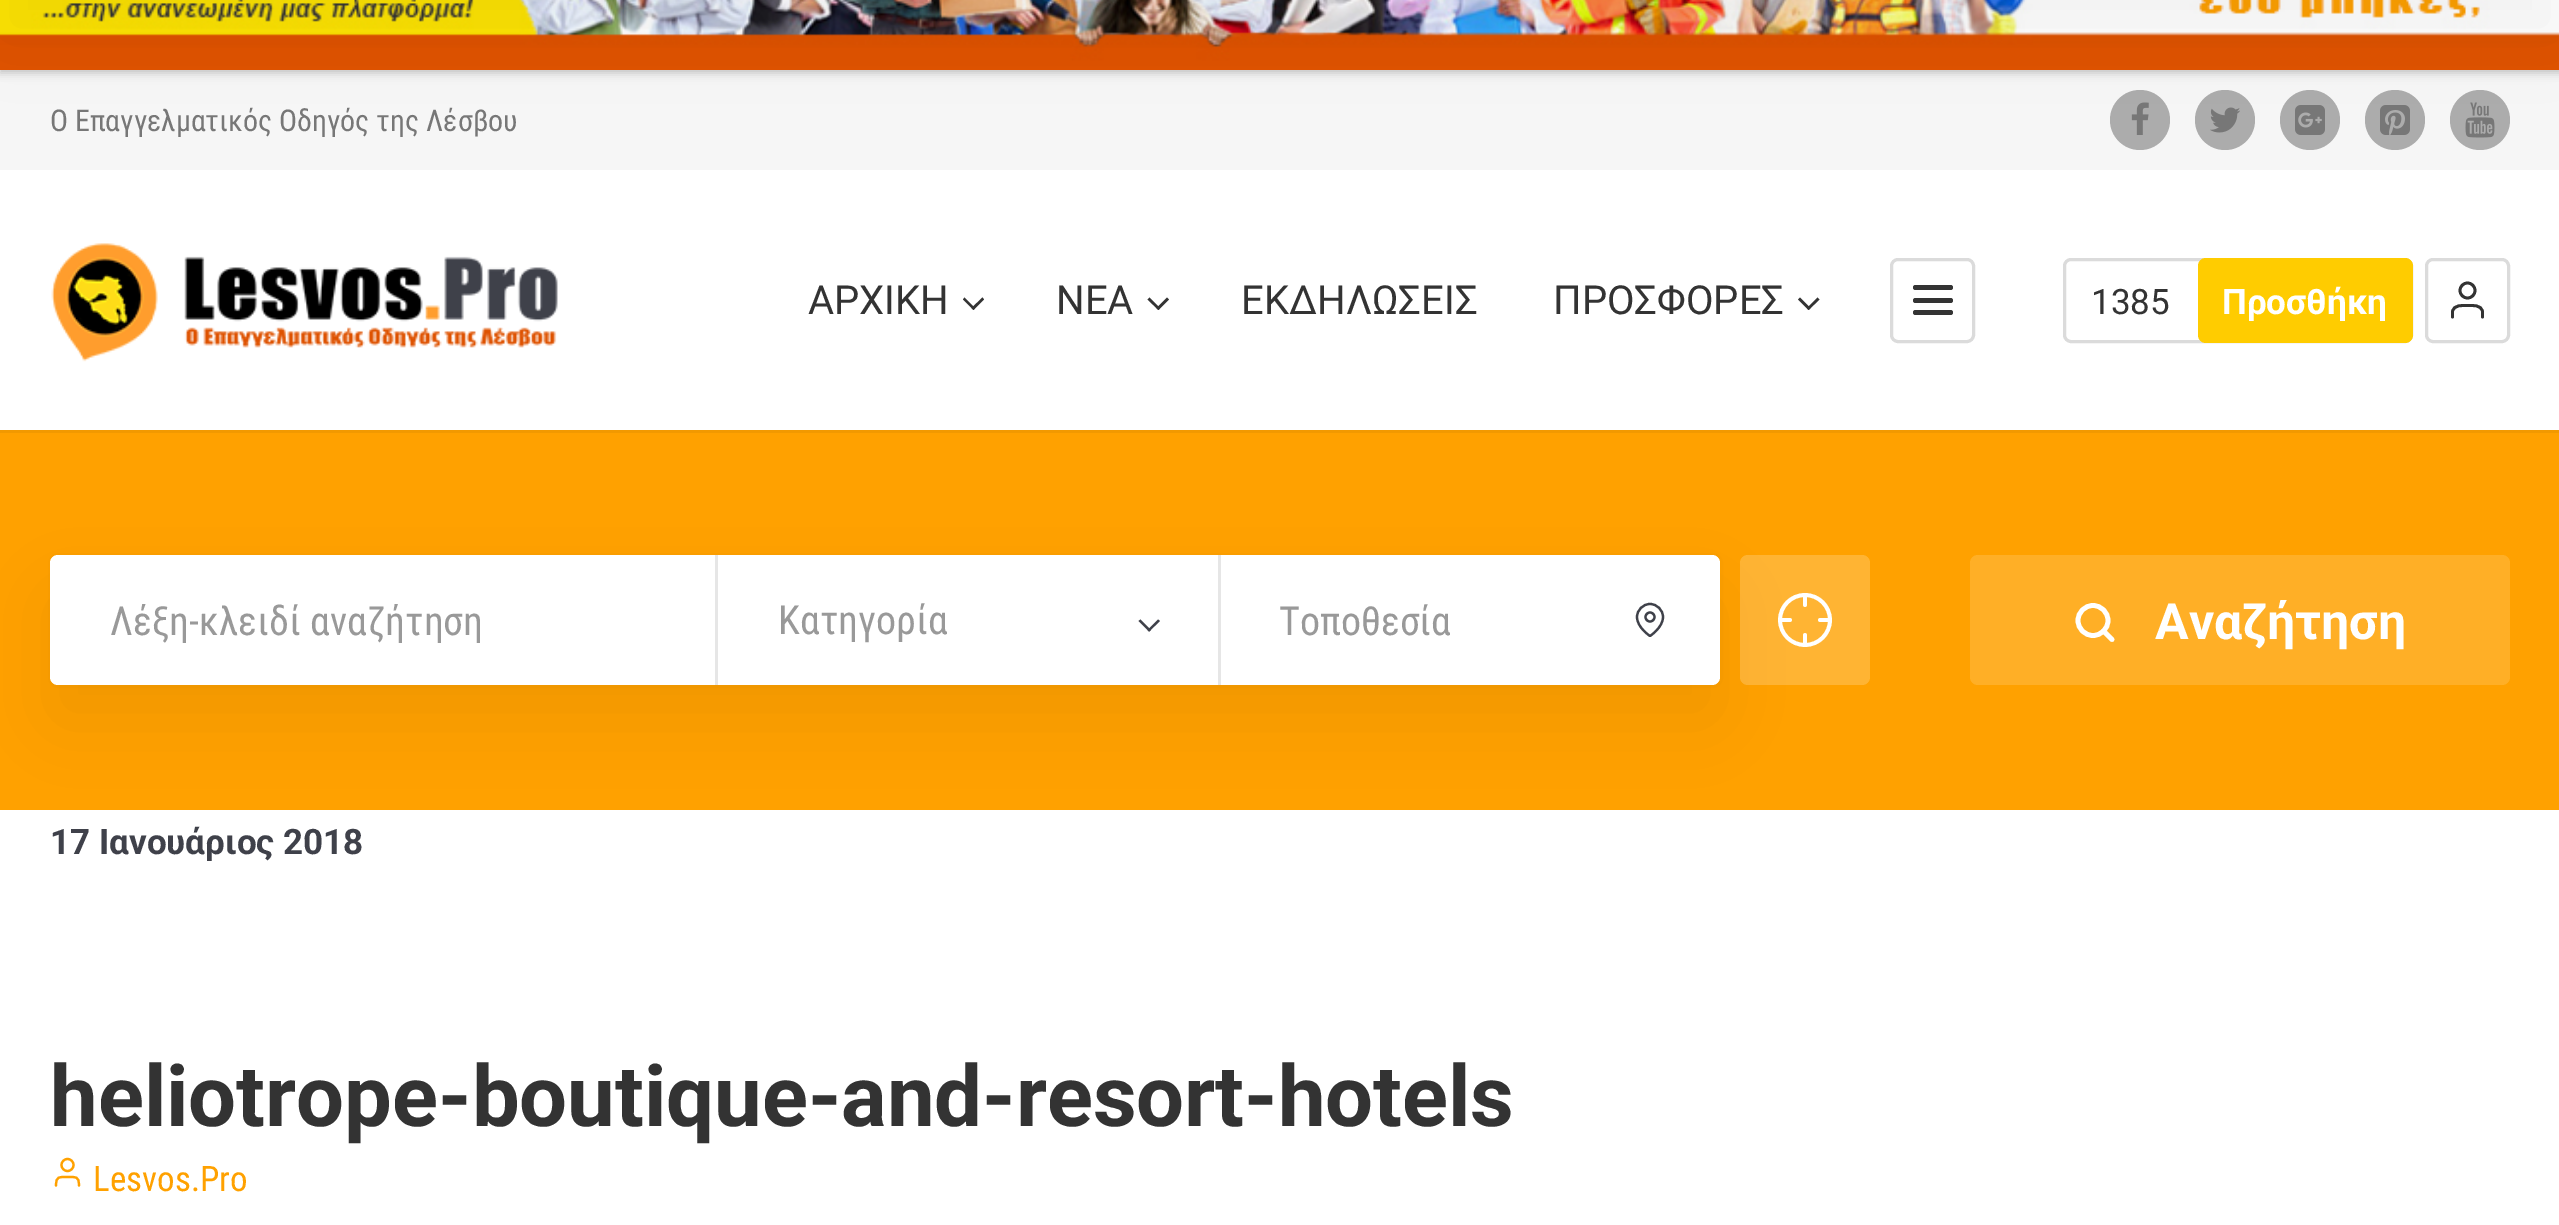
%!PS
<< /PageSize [2559 1225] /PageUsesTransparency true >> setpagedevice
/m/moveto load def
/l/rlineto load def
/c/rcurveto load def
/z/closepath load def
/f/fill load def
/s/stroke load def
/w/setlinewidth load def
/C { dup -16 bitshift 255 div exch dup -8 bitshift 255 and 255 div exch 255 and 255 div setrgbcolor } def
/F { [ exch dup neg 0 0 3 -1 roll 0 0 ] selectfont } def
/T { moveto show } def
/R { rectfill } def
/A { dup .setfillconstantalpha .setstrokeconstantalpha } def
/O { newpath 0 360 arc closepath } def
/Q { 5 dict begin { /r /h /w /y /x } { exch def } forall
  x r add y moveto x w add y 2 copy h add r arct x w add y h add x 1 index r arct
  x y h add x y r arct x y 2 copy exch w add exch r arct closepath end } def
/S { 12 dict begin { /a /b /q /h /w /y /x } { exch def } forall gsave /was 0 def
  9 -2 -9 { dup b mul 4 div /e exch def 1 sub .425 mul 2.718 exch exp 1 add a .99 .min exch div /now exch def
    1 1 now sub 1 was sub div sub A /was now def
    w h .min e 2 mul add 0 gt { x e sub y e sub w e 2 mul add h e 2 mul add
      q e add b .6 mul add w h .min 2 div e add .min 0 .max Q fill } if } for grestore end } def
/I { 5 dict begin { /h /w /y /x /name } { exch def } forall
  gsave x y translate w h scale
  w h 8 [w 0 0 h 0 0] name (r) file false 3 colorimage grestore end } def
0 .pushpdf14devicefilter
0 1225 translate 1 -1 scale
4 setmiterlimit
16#FFFFFF C
0 0 2559 1225 R
16#F6F6F6 C
0 70 2559 100 R
16#000000 C
0 -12 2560 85 0 4 .2 S
(1.rgb) 0 0 2559 70 I
16#ACACAC C
2140 120 30 O f
(2.rgb) 2131 102 18 33 I
2225 120 30 O f
(3.rgb) 2210 107 30 26 I
2310 120 30 O f
(4.rgb) 2295 105 30 30 I
2395 120 30 O f
(5.rgb) 2380 105 30 30 I
2480 120 30 O f
(6.rgb) 2465 102 30 36 I
16#000000 C
0 -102 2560 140 0 37.5 .05 S
16#F29900 C
0 430 2559 3 R
/RobotoCondensed-Regular 30 F
16#777777 C
(Ο Επαγγελματικός Οδηγός της Λέσβου) 50 131 T
(7.rgb) 51 243 507 119 I
/Roboto-Regular 40 F
16#333333 C
(ΑΡΧΙΚΗ) 808 314 T
982.5 297.5 m 1.5 2 l -10.5 10.5 l -2 -2 l z f
964.5 297.5 m 10.5 10.5 l -1.5 2 l -10.5 -10.5 l z f
(ΝΕΑ) 1056 314 T
1167 297.5 m 2 2 l -10.5 10.5 l -2 -2 l z f
1149.5 297.5 m 10.5 10.5 l -1.5 2 l -11 -10.5 l z f
(ΕΚΔΗΛΩΣΕΙΣ) 1241 314 T
(ΠΡΟΣΦΟΡΕΣ) 1553 314 T
1817.5 297.5 m 2 2 l -11 10.5 l -1.5 -2 l z f
1800 297.5 m 10.5 10.5 l -2 2 l -10.5 -10.5 l z f
16#DBDBDB C
3 w
1891.5 259.5 82 82 6.5 Q s
16#333333 C
1913 298 40 5 2.5 Q f
1913 285 40 5 2.5 Q f
1913 310 40 5 2.5 Q f
16#DBDBDB C
2064.5 259.5 347 82 6.5 Q s
/Roboto-Regular 35 F
16#333333 C
(1385) 2091 314 T
16#FFCC00 C
2198 258 215 85 8 Q f
/Roboto-Bold 35 F
16#FFFFFF C
(Προσθήκη) 2222 314 T
16#DBDBDB C
2426.5 259.5 82 82 6.5 Q s
16#333333 C
2.8 w
2467.5 290.5 7.5 O s
1 setlinecap
1 setlinejoin
2482.5 317 m 0 -5.5 l -1.5 -7 -9.5 -6 -15 -6 c -5.5 0 -13.5 -1 -15 6 c 0 5.5 l s
16#FFA100 C
0 433 2559 377 R
16#FC9F00 C
3 w
0 setlinecap
0 setlinejoin
49.5 554.5 1672 132 8.5 Q s
16#000000 C
50 593 1670 130 8 37.5 .05 S
16#FFFFFF C
50 555 1670 130 8 Q f
16#E6E6E6 C
715 555 3 130 R
/RobotoCondensed-Regular 40 F
16#999999 C
(Λέξη-κλειδί αναζήτηση) 110 635 T
16#E6E6E6 C
1218 555 3 130 R
16#999999 C
(Κατηγορία) 778 634 T
16#3F414A C
1158 619.5 m 2 1.5 l -11 10.5 l -1.5 -1.5 l z f
1140.5 619.5 m 10.5 10.5 l -2 1.5 l -10.5 -10.5 l z f
16#999999 C
(Τοποθεσία) 1279 635 T
16#3F414A C
2.2 w
1 setlinecap
1 setlinejoin
1663 617 m 0 10.5 -13 19 -13 19 c 0 0 -13 -8.5 -13 -19 c 0 -7 6 -13 13 -13 c 7 0 13 6 13 13 c z s
0 setlinecap
0 setlinejoin
1650 617 4.5 O s
0.2 A
16#FFFFFF C
1740 555 130 130 8 Q f
1 A
3.8 w
1805 620 25 O s
1 setlinecap
1 setlinejoin
1830 620 m -10 0 l 1790 620 m -10 0 l 1805 605 m 0 -10 l 1805 645 m 0 -10 l s
16#FFAF26 C
1970 555 540 130 8 Q f
16#FFFFFF C
4.7 w
0 setlinecap
0 setlinejoin
2093 620.5 15 O s
1 setlinecap
1 setlinejoin
2112 639.5 m -8.5 -8.5 l s
/Roboto-Bold 50 F
(Αναζήτηση) 2155 639 T
/Roboto-Bold 35 F
16#3F414A C
(17 Ιανουάριος 2018) 50 854 T
/Roboto-Bold 85 F
16#333333 C
(heliotrope-boutique-and-resort-hotels) 50 1126 T
/RobotoCondensed-Regular 35 F
16#FFA100 C
(Lesvos.Pro) 93 1191 T
2.2 w
79 1185.5 m 0 -9.5 -3 -8.5 -11.5 -8.5 c -8.5 0 -11.5 -1 -11.5 8.5 c s
0 setlinecap
0 setlinejoin
67.5 1165 6 O s
.poppdf14devicefilter showpage
